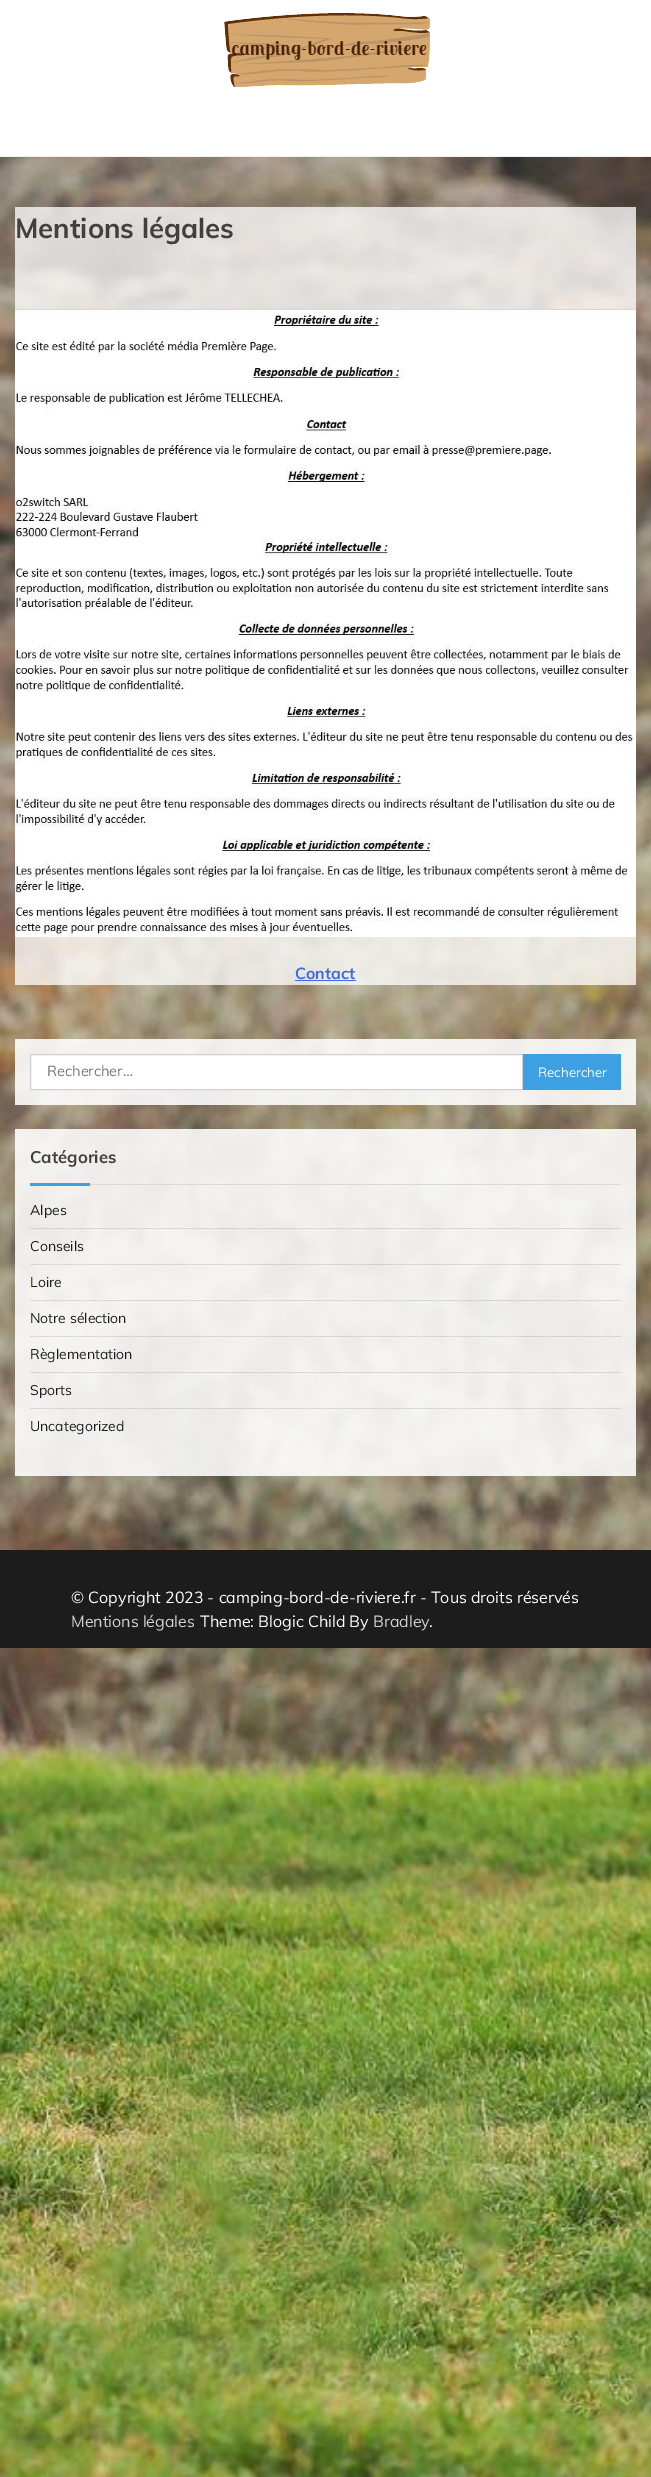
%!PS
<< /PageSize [651 2477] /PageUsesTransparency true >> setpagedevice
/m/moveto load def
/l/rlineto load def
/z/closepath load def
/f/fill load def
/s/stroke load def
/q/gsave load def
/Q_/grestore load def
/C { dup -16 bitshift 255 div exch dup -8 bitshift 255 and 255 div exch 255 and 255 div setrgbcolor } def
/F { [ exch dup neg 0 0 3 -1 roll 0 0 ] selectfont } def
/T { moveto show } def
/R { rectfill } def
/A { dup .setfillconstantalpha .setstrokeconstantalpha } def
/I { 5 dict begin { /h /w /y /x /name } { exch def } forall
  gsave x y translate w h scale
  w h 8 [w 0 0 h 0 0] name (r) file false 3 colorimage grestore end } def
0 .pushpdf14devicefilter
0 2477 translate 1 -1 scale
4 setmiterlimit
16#FFFFFF C
0 0 651 2477 R
(1.rgb) 0 157 651 2320 I
16#F1F1F1 C
0 156 651 1 R
(2.rgb) 224 13 206 74 I
0.77 A
16#FFFFFF C
15 207 621 778 R
/Muli-Bold 27.5 F
1 A
16#404040 C
(Mentions légales) 15 238 T
(3.rgb) 15 309 621 628 I
/Muli-Bold 16 F
16#4169E1 C
(Contact) 295 979 T
295 980 61 1 R
0.88 A
16#FFFFFF C
15 1039 621 66 R
1 A
30.5 1054.5 m 492 0 l 0 35 l -492 0 l z q f Q_
16#D3CED2 C
s
/Muli-Regular 14.5 F
16#757575 C
(Rechercher…) 47 1076 T
16#3DA0E2 C
523 1054 98 36 R
/Muli-Regular 13.25 F
16#FFFFFF C
(Rechercher) 538 1077 T
0.88 A
15 1129 621 347 R
1 A
16#D9D9D9 C
90 1184 531 1 R
/Muli-Bold 16.75 F
16#404040 C
(Catégories) 30 1163 T
16#3DA0E2 C
30 1183 60 3 R
0.1 A
16#000000 C
30 1228 591 1 R
/Muli-Regular 14 F
1 A
16#191B1D C
(Alpes) 30 1215 T
0.1 A
16#000000 C
30 1264 591 1 R
1 A
16#191B1D C
(Conseils) 30 1251 T
0.1 A
16#000000 C
30 1300 591 1 R
1 A
16#191B1D C
(Loire) 30 1287 T
0.1 A
16#000000 C
30 1336 591 1 R
1 A
16#191B1D C
(Notre sélection) 30 1323 T
0.1 A
16#000000 C
30 1372 591 1 R
1 A
16#191B1D C
(Règlementation) 30 1359 T
0.1 A
16#000000 C
30 1408 591 1 R
1 A
16#191B1D C
(Sports) 30 1395 T
(Uncategorized) 30 1431 T
16#1C1C1C C
0 1550 651 98 R
/Muli-Regular 16 F
16#FFFFFF C
(© Copyright 2023 - camping-bord-de-riviere.fr - Tous droits réservés) 71 1603 T
16#D2D2D2 C
(Mentions légales) 71 1627 T
16#FFFFFF C
(Theme: Blogic Child By) 200 1627 T
16#D2D2D2 C
(Bradley) 373 1627 T
16#FFFFFF C
(.) 429 1627 T
.poppdf14devicefilter showpage
